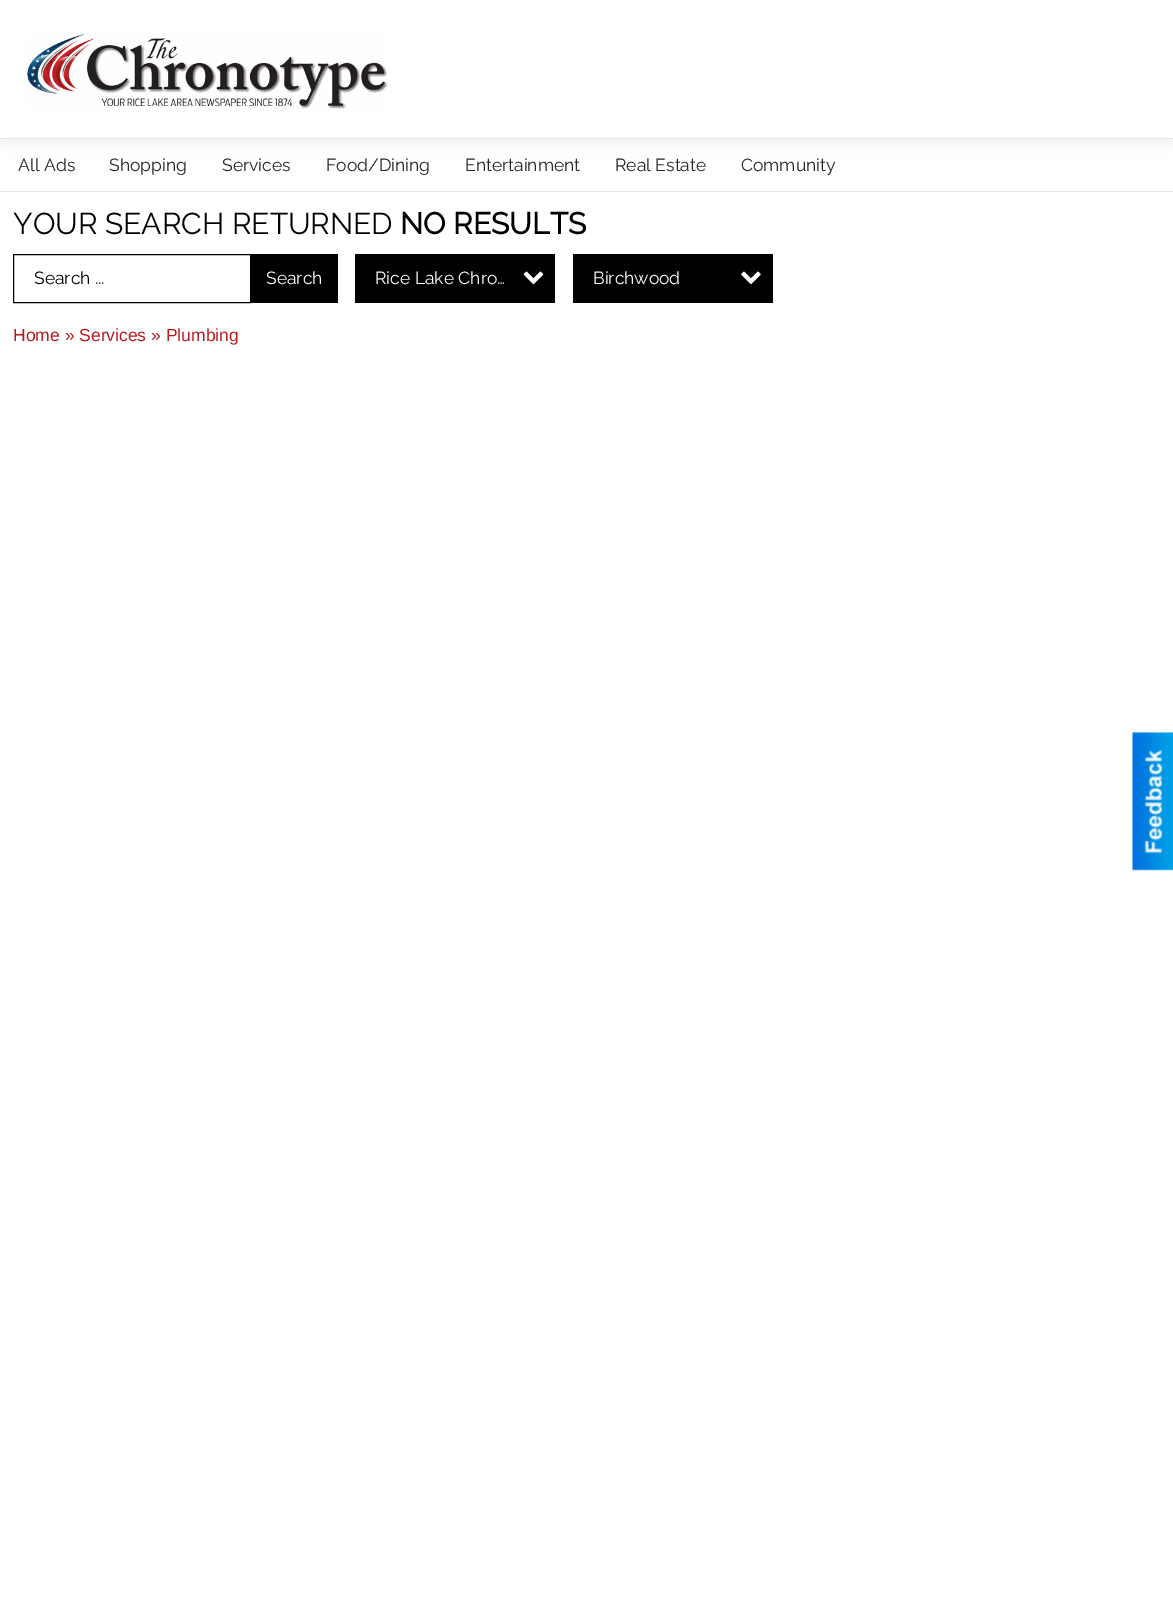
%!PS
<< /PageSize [1173 1601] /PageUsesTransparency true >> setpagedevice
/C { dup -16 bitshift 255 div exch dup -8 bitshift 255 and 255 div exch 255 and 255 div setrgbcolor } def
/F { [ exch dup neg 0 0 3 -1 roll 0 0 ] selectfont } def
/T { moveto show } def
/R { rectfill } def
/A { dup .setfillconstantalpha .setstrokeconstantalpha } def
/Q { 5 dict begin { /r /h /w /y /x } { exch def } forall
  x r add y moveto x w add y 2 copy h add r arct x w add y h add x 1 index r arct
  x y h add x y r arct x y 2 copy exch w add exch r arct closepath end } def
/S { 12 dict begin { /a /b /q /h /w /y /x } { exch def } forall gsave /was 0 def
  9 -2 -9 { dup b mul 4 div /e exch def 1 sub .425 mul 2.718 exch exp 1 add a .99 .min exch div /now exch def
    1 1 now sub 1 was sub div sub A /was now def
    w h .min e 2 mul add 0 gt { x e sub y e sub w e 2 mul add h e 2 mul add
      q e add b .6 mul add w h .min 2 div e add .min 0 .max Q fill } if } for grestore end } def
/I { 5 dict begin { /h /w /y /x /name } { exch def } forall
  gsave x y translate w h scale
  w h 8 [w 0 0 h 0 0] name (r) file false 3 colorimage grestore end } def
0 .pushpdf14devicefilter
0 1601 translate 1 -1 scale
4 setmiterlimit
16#FFFFFF C
0 0 1173 1601 R
16#000000 C
0 6 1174 139 0 6 .05 S
16#FFFFFF C
0 1 1173 137 R
16#E6E6E6 C
0 138 1173 1 R
(1.rgb) 27 33 361 76 I
0 191 1173 1 R
/Raleway-Regular 17.5 F
16#242424 C
(All Ads) 18 171 T
(Shopping) 109 171 T
(Services) 222 171 T
(Food/Dining) 326 171 T
(Entertainment) 465 171 T
(Real Estate) 615 171 T
(Community) 741 171 T
/Raleway-Regular 30 F
16#000000 C
(YOUR SEARCH RETURNED) 13 234 T
/Raleway-Bold 30 F
(NO RESULTS) 400 234 T
13.5 254.5 237 48 rectstroke
/Raleway-Regular 17.5 F
(Search ...) 34 284 T
251 254 87 49 R
16#FFFFFF C
(Search) 266 284 T
16#000000 C
355 254 200 49 R
16#FFFFFF C
(Rice Lake Chro…) 375 284 T
(2.rgb) 523 271 21 14 I
16#000000 C
573 254 200 49 R
16#FFFFFF C
(Birchwood) 593 284 T
(3.rgb) 741 271 20 14 I
/LiberationSans-Regular 17.5 F
16#B61B1F C
(Home » Services » Plumbing) 13 341 T
(4.rgb) 1132 732 41 139 I
.poppdf14devicefilter showpage
